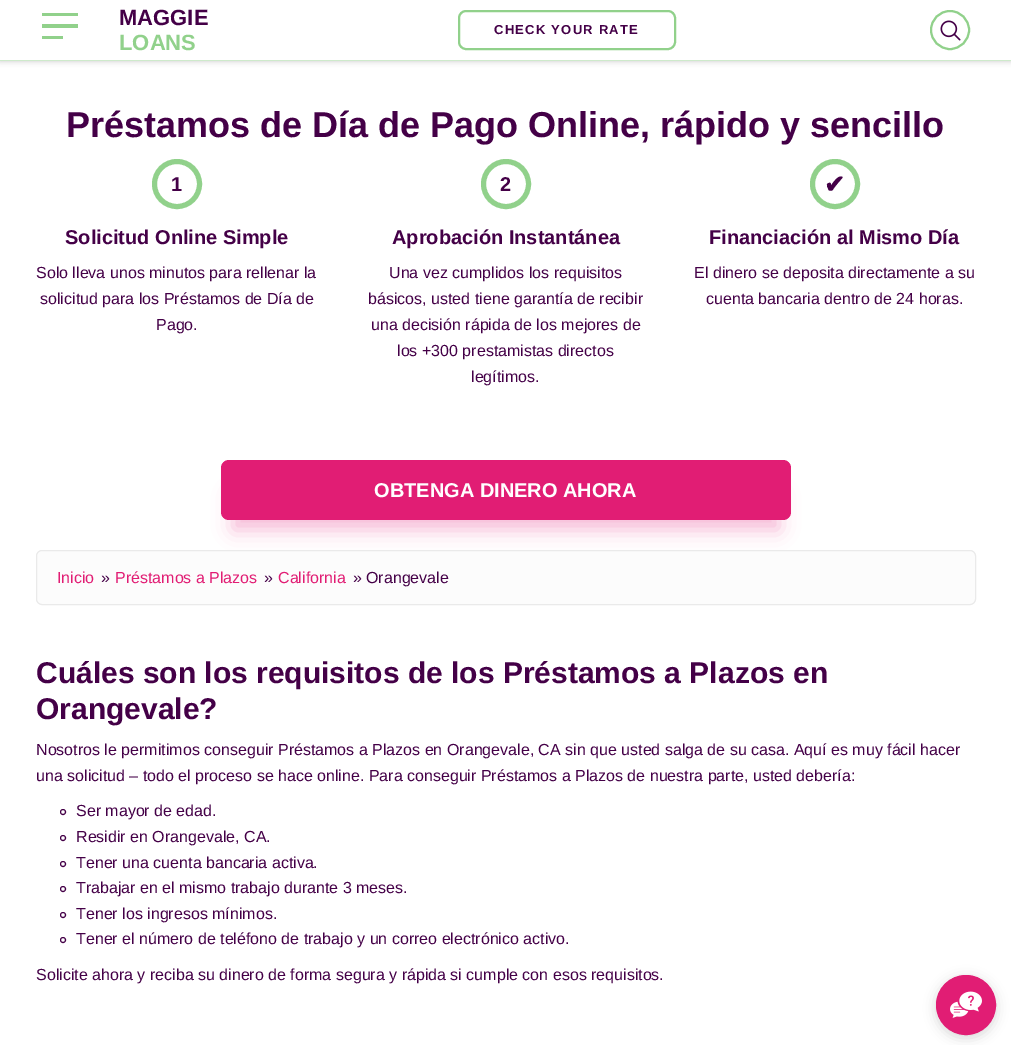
%!PS
<< /PageSize [1011 1045] /PageUsesTransparency true >> setpagedevice
/m/moveto load def
/f/fill load def
/s/stroke load def
/q/gsave load def
/Q_/grestore load def
/w/setlinewidth load def
/C { dup -16 bitshift 255 div exch dup -8 bitshift 255 and 255 div exch 255 and 255 div setrgbcolor } def
/F { [ exch dup neg 0 0 3 -1 roll 0 0 ] selectfont } def
/T { moveto show } def
/R { rectfill } def
/A { dup .setfillconstantalpha .setstrokeconstantalpha } def
/O { newpath 0 360 arc closepath } def
/Q { 5 dict begin { /r /h /w /y /x } { exch def } forall
  x r add y moveto x w add y 2 copy h add r arct x w add y h add x 1 index r arct
  x y h add x y r arct x y 2 copy exch w add exch r arct closepath end } def
/S { 12 dict begin { /a /b /q /h /w /y /x } { exch def } forall gsave /was 0 def
  9 -2 -9 { dup b mul 4 div /e exch def 1 sub .425 mul 2.718 exch exp 1 add a .99 .min exch div /now exch def
    1 1 now sub 1 was sub div sub A /was now def
    w h .min e 2 mul add 0 gt { x e sub y e sub w e 2 mul add h e 2 mul add
      q e add b .6 mul add w h .min 2 div e add .min 0 .max Q fill } if } for grestore end } def
/I { 5 dict begin { /h /w /y /x /name } { exch def } forall
  gsave x y translate w h scale
  w h 8 [w 0 0 h 0 0] name (r) file false 3 colorimage grestore end } def
0 .pushpdf14devicefilter
0 1045 translate 1 -1 scale
4 setmiterlimit
16#FFFFFF C
0 0 1011 1045 R
16#000000 C
0 0 1011 61 0 3 .22 S
16#FFFFFF C
0 0 1011 60 R
16#CEEACB C
0 60 1011 1 R
16#91D18B C
42 13 36 3 R
42 24 36 4 R
42 36 21 3 R
/LiberationSans-Bold 22 F
16#440047 C
(MAGGIE) 119 25 T
16#91D18B C
(LOANS) 119 50 T
2 w
459 11 216 38 7 Q s
/LiberationSans-Bold 13 F
16#440047 C
494 34 m 1.25 0 (CHECK YOUR RATE) ashow
16#91D18B C
950 30 19 O s
(1.rgb) 940 20 21 21 I
/LiberationSans-Bold 36 F
16#440047 C
(Préstamos de Día de Pago Online, rápido y sencillo) 66 137 T
16#91D18B C
5 w
177 184 22.5 O s
/LiberationSans-Bold 20 F
16#440047 C
(1) 171 191 T
(Solicitud Online Simple) 65 244 T
/LiberationSans-Regular 16 F
(Solo lleva unos minutos para rellenar la) 36 278 T
(solicitud para los Préstamos de Día de) 40 304 T
(Pago.) 156 330 T
16#91D18B C
506 184 22.5 O s
/LiberationSans-Bold 20 F
16#440047 C
(2) 500 191 T
(Aprobación Instantánea) 392 244 T
/LiberationSans-Regular 16 F
(Una vez cumplidos los requisitos) 389 278 T
(básicos, usted tiene garantía de recibir) 368 304 T
(una decisión rápida de los mejores de) 371 330 T
(los +300 prestamistas directos) 397 356 T
(legítimos.) 471 382 T
16#91D18B C
835 184 22.5 O s
/DejaVuSans-Bold 25 F
16#440047 C
(✔) 824 193 T
/LiberationSans-Bold 20 F
(Financiación al Mismo Día) 709 244 T
/LiberationSans-Regular 16 F
(El dinero se deposita directamente a su) 694 278 T
(cuenta bancaria dentro de 24 horas.) 706 304 T
16#E11D74 C
233 494 546 36 0 10 .3 S
221 460 570 60 8 Q f
/LiberationSans-Bold 20 F
16#FFFFFF C
(OBTENGA DINERO AHORA) 374 497 T
16#FCFCFC C
36.5 550.5 939 54 5.5 Q q f Q_
16#EAEAEA C
1 w
s
/LiberationSans-Regular 16 F
16#E11D74 C
(Inicio) 57 583 T
16#440047 C
(») 101 583 T
16#E11D74 C
(Préstamos a Plazos) 115 583 T
16#440047 C
(») 264 583 T
16#E11D74 C
(California) 278 583 T
16#440047 C
(») 353 583 T
(Orangevale) 366 583 T
/LiberationSans-Bold 30 F
(Cuáles son los requisitos de los Préstamos a Plazos en) 36 683 T
(Orangevale?) 36 719 T
/LiberationSans-Regular 16 F
(Nosotros le permitimos conseguir Préstamos a Plazos en Orangevale, CA sin que usted salga de su casa. Aquí es muy fácil hacer) 36 755 T
(una solicitud – todo el proceso se hace online. Para conseguir Préstamos a Plazos de nuestra parte, usted debería:) 36 781 T
63 812 2.5 O s
(Ser mayor de edad.) 76 816 T
63 838 2.5 O s
(Residir en Orangevale, CA.) 76 842 T
63 864 2.5 O s
(Tener una cuenta bancaria activa.) 76 868 T
63 889 2.5 O s
(Trabajar en el mismo trabajo durante 3 meses.) 76 893 T
63 915 2.5 O s
(Tener los ingresos mínimos.) 76 919 T
63 940 2.5 O s
(Tener el número de teléfono de trabajo y un correo electrónico activo.) 76 944 T
(Solicite ahora y reciba su dinero de forma segura y rápida si cumple con esos requisitos.) 36 980 T
16#000000 C
936 978 60 60 30 6 .15 S
16#E11D74 C
966 1005 29.5 O q f Q_
s
(2.rgb) 950 991 32 27 I
.poppdf14devicefilter showpage
